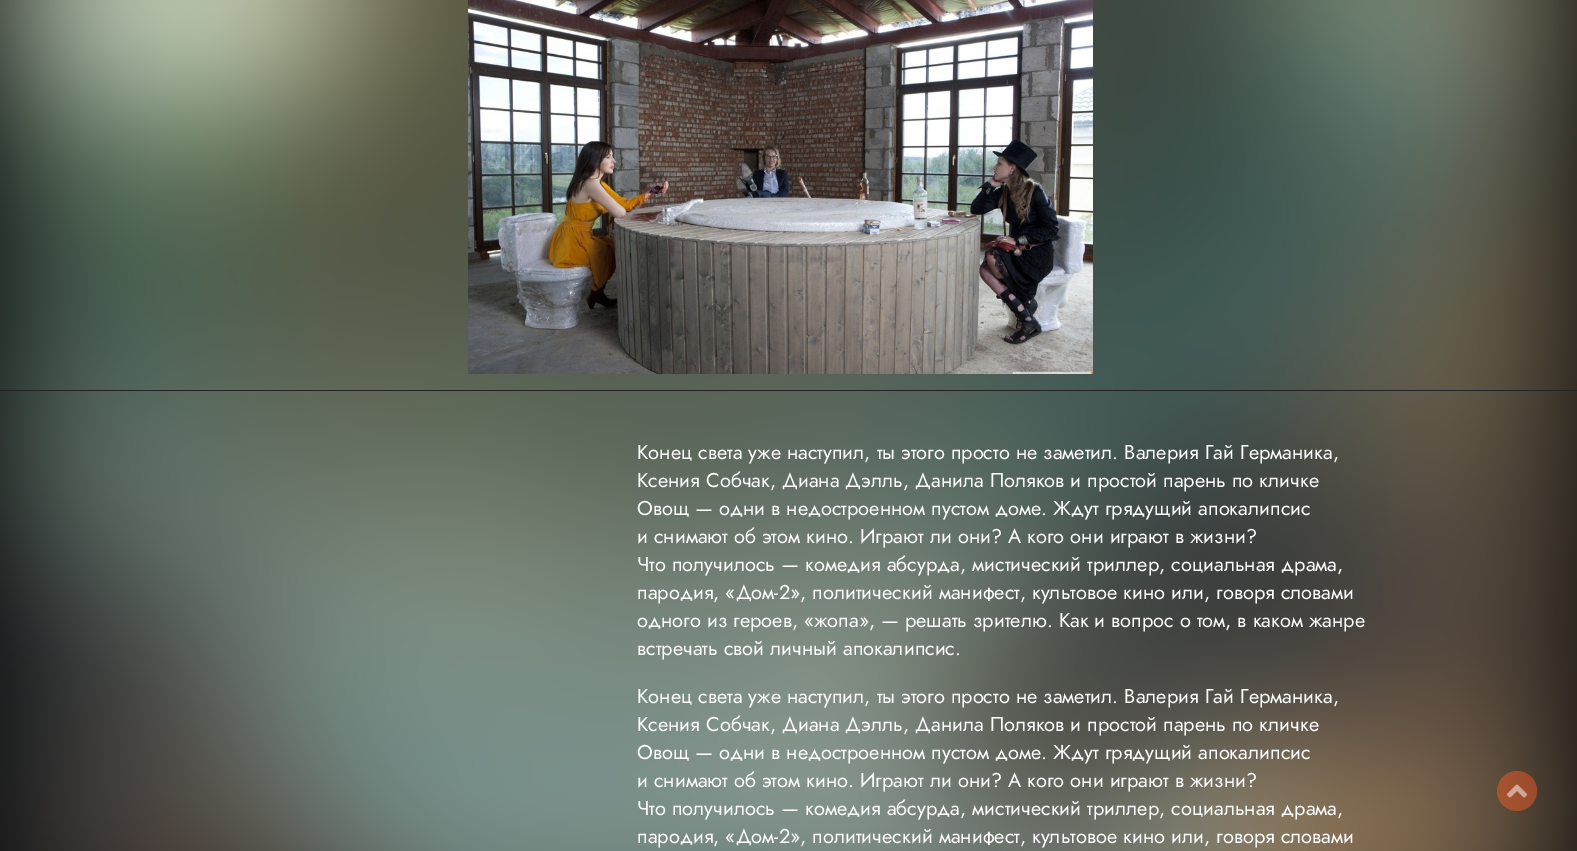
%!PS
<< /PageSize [1577 851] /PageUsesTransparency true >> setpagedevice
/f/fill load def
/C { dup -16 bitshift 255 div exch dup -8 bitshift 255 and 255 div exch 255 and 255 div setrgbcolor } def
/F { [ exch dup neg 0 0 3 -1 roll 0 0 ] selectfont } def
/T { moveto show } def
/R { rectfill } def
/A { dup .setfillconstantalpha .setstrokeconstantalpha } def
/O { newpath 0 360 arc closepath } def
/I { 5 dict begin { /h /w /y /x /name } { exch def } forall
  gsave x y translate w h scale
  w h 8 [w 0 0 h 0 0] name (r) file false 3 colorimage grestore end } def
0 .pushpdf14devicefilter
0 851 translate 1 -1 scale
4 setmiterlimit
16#000000 C
0 0 1577 851 R
(1.rgb) 0 0 1577 851 I
16#232325 C
0 390 1577 1 R
(2.rgb) 468 0 625 374 I
/Jost-Regular 20 F
16#FFFFFF C
(Конец света уже наступил, ты этого просто не заметил. Валерия Гай Германика,) 637 459 T
(Ксения Собчак, Диана Дэлль, Данила Поляков и простой парень по кличке) 637 487 T
(Овощ — одни в недостроенном пустом доме. Ждут грядущий апокалипсис) 637 515 T
(и снимают об этом кино. Играют ли они? А кого они играют в жизни?) 637 543 T
(Что получилось — комедия абсурда, мистический триллер, социальная драма,) 637 571 T
(пародия, «Дом-2», политический манифест, культовое кино или, говоря словами) 637 599 T
(одного из героев, «жопа», — решать зрителю. Как и вопрос о том, в каком жанре) 637 627 T
(встречать свой личный апокалипсис.) 637 655 T
(Конец света уже наступил, ты этого просто не заметил. Валерия Гай Германика,) 637 703 T
(Ксения Собчак, Диана Дэлль, Данила Поляков и простой парень по кличке) 637 731 T
(Овощ — одни в недостроенном пустом доме. Ждут грядущий апокалипсис) 637 759 T
(и снимают об этом кино. Играют ли они? А кого они играют в жизни?) 637 787 T
(Что получилось — комедия абсурда, мистический триллер, социальная драма,) 637 815 T
(пародия, «Дом-2», политический манифест, культовое кино или, говоря словами) 637 843 T
0.5 A
16#EF5A26 C
1517 791 20 O f
1 A
(3.rgb) 1507 784 20 14 I
.poppdf14devicefilter showpage
